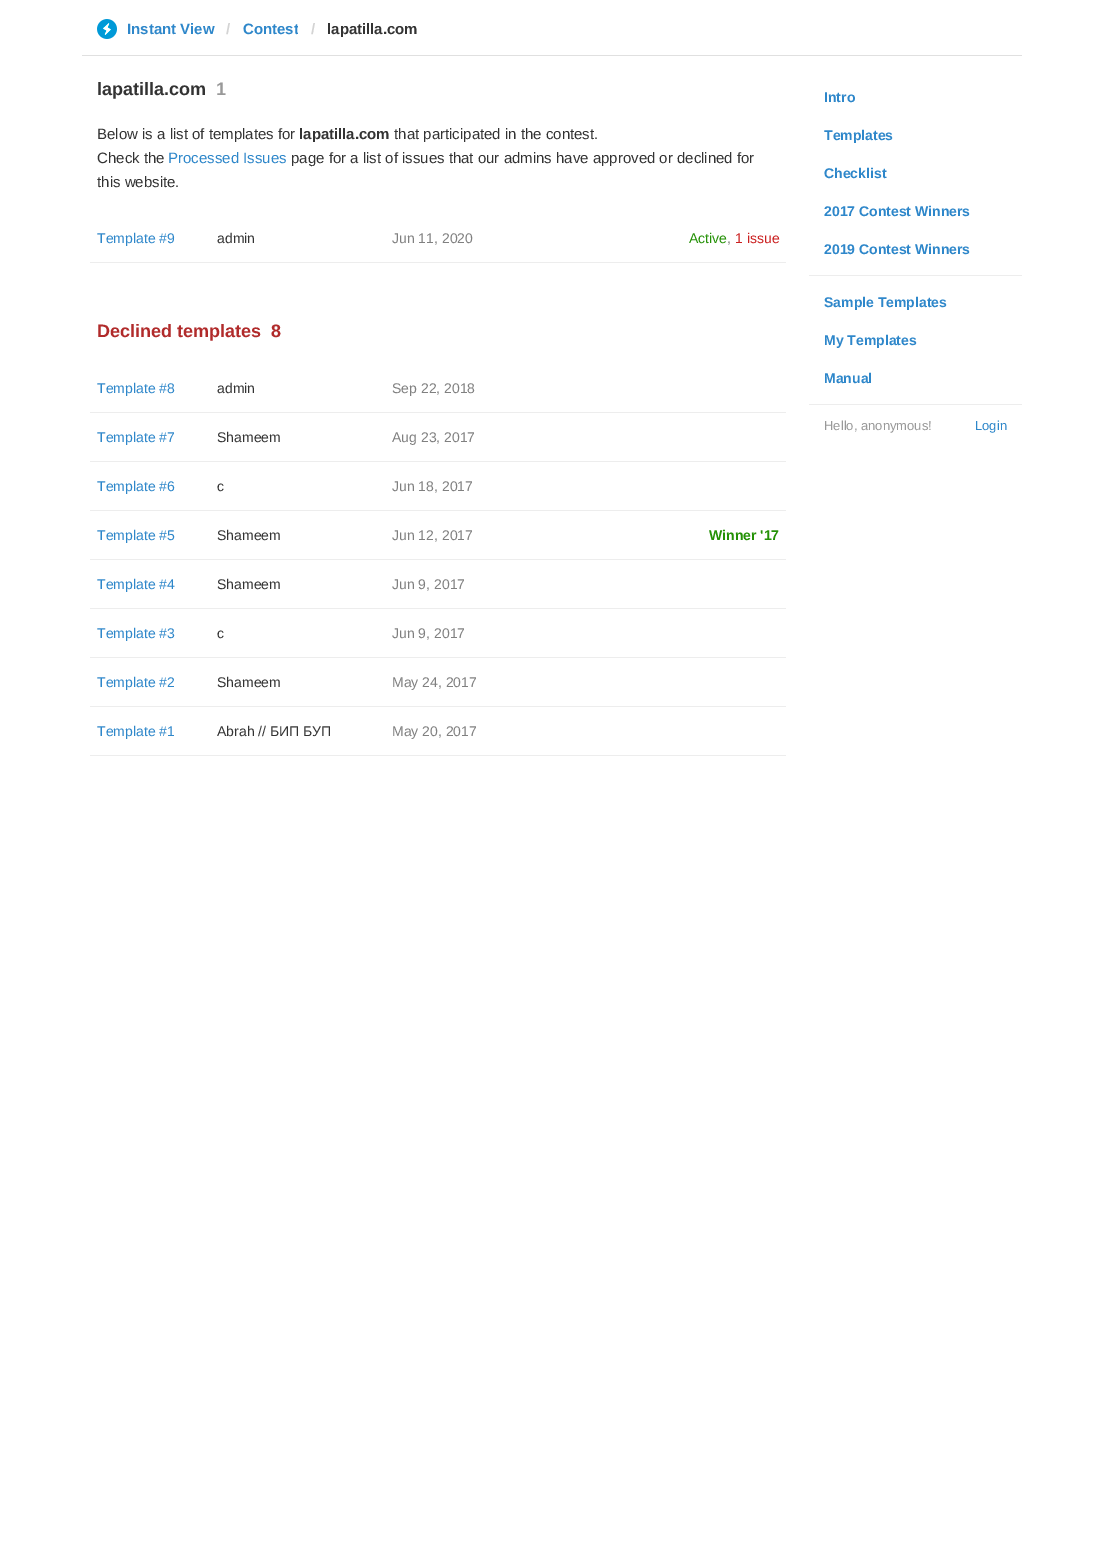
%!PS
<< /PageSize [1103 1552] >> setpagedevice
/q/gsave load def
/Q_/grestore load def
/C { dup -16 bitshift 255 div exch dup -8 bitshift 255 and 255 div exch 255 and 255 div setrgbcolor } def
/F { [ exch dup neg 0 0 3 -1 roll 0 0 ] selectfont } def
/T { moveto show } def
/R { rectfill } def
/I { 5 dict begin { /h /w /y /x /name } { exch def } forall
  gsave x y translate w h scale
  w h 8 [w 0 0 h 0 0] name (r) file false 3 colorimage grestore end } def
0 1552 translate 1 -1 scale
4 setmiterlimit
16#FFFFFF C
0 0 1103 1552 R
16#E0E0E0 C
82 55 940 1 R
(1.rgb) 97 19 20 20 I
/LiberationSans-Bold 15 F
16#2E87CA C
(Instant View) 127 34 T
16#D4D4D4 C
(/) 226 34 T
q
243 19 55 20 rectclip
16#2E87CA C
(Contest) 243 34 T
Q_
(/) 311 34 T
16#333333 C
(lapatilla.com) 327 34 T
/LiberationSans-Bold 18 F
(lapatilla.com) 97 95 T
16#999999 C
(1) 216 95 T
/LiberationSans-Regular 15 F
16#333333 C
(Below is a list of templates for) 97 139 T
/LiberationSans-Bold 15 F
(lapatilla.com) 299 139 T
/LiberationSans-Regular 15 F
(that participated in the contest.) 394 139 T
(Check the) 97 163 T
16#2E87CA C
(Processed Issues) 168 163 T
16#333333 C
(page for a list of issues that our admins have approved or declined for) 291 163 T
(this website.) 97 187 T
16#EDEDED C
90 262 696 1 R
/LiberationSans-Regular 14 F
16#2E87CA C
(Template #9) 97 243 T
16#333333 C
(admin) 217 243 T
16#808080 C
(Jun 11, 2020) 392 243 T
16#249106 C
(Active) 689 243 T
16#808080 C
(,) 727 243 T
16#CB2020 C
(1 issue) 735 243 T
/LiberationSans-Bold 18 F
16#B12B2B C
(Declined templates) 97 337 T
(8) 271 337 T
16#EDEDED C
90 412 696 1 R
/LiberationSans-Regular 14 F
16#2E87CA C
(Template #8) 97 393 T
16#333333 C
(admin) 217 393 T
16#808080 C
(Sep 22, 2018) 392 393 T
16#EDEDED C
90 461 696 1 R
16#2E87CA C
(Template #7) 97 442 T
16#333333 C
(Shameem) 217 442 T
16#808080 C
(Aug 23, 2017) 392 442 T
16#EDEDED C
90 510 696 1 R
16#2E87CA C
(Template #6) 97 491 T
16#333333 C
(c) 217 491 T
16#808080 C
(Jun 18, 2017) 392 491 T
16#EDEDED C
90 559 696 1 R
16#2E87CA C
(Template #5) 97 540 T
16#333333 C
(Shameem) 217 540 T
16#808080 C
(Jun 12, 2017) 392 540 T
/LiberationSans-Bold 14 F
16#249106 C
(Winner '17) 709 540 T
16#EDEDED C
90 608 696 1 R
/LiberationSans-Regular 14 F
16#2E87CA C
(Template #4) 97 589 T
16#333333 C
(Shameem) 217 589 T
16#808080 C
(Jun 9, 2017) 392 589 T
16#EDEDED C
90 657 696 1 R
16#2E87CA C
(Template #3) 97 638 T
16#333333 C
(c) 217 638 T
16#808080 C
(Jun 9, 2017) 392 638 T
16#EDEDED C
90 706 696 1 R
16#2E87CA C
(Template #2) 97 687 T
16#333333 C
(Shameem) 217 687 T
16#808080 C
(May 24, 2017) 392 687 T
16#EDEDED C
90 755 696 1 R
16#2E87CA C
(Template #1) 97 736 T
16#333333 C
(Abrah // БИП БУП) 217 736 T
16#808080 C
(May 20, 2017) 392 736 T
/LiberationSans-Bold 14 F
16#2E87CA C
(Intro) 824 102 T
(Templates) 824 140 T
(Checklist) 824 178 T
(2017 Contest Winners) 824 216 T
(2019 Contest Winners) 824 254 T
16#EDEDED C
809 275 213 1 R
16#2E87CA C
(Sample Templates) 824 307 T
(My Templates) 824 345 T
(Manual) 824 383 T
16#EDEDED C
809 404 213 1 R
/LiberationSans-Regular 13 F
16#999999 C
(Hello, anonymous!) 824 430 T
16#2E87CA C
(Login) 975 430 T
showpage
